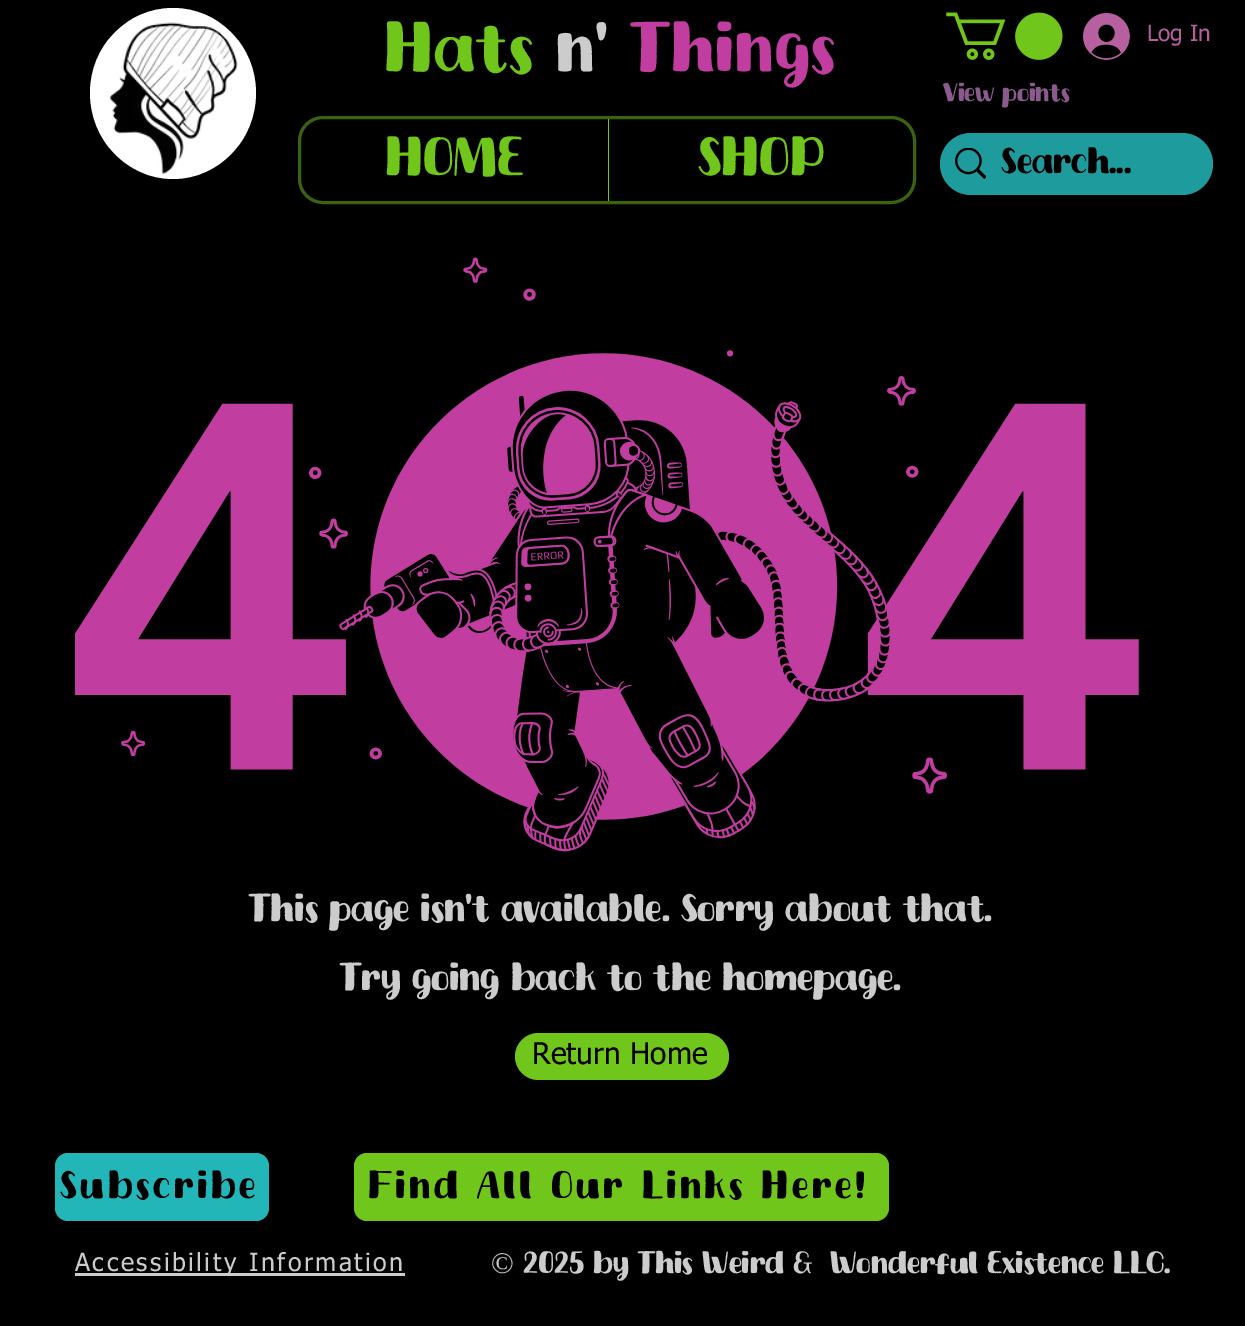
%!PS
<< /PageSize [1245 1326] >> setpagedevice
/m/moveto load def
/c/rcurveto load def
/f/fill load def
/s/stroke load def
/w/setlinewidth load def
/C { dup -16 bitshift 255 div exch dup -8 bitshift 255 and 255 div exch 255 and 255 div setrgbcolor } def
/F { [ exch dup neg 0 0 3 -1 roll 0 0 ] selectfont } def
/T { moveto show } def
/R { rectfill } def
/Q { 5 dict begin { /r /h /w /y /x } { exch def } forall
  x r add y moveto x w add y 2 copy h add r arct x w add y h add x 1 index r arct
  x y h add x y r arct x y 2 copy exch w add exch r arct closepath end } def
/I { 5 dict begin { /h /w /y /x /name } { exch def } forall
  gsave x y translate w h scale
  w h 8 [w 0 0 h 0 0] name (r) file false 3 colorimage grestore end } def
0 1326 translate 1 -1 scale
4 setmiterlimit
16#000000 C
0 0 1245 1326 R
16#FFFFFF C
256 93 m 0 47 -37 86 -83 86 c -46 0 -83 -39 -83 -86 c 0 -47 37 -85 83 -85 c 46 0 83 38 83 85 c f
(1.rgb) 109 22 129 152 I
/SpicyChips-Regular 67.5 F
16#71C61C C
384 71 m 1.5 0 (Hats) ashow
16#CCCCCC C
556 71 m 1.5 0 (n') ashow
16#C13DA0 C
631 71 m 1.5 0 (Things) ashow
(2.rgb) 946 12 117 48 I
(3.rgb) 1083 13 47 47 I
/tahoma-Regular 22.5 F
16#B660A0 C
(Log In) 1147 41 T
/SpicyChips-Regular 25 F
16#8B5A8F C
(View points) 943 101 T
16#39630E C
3 w
299.5 117.5 615 85 23.5 Q s
/SpicyChips-Regular 52.5 F
16#71C61C C
(HOME) 385 175 T
608 119 1 82 R
(SHOP) 698 175 T
16#1E9B9D C
940 133 273 62 31 Q f
(4.rgb) 955 148 31 31 I
/SpicyChips-Regular 35 F
16#000000 C
(Search...) 1001 173 T
(5.rgb) 75 257 1064 595 I
/SpicyChips-Regular 37.5 F
16#CCCCCC C
(This page isn't available. Sorry about that.) 249 921 T
(Try going back to the homepage.) 340 990 T
16#71C61C C
515 1033 214 47 23.5 Q f
/tahoma-Regular 30 F
16#000000 C
(Return Home) 532 1064 T
16#23B6B9 C
55 1153 214 68 13 Q f
/SpicyChips-Regular 37.5 F
16#000000 C
60 1198 m 3.75 0 (Subscribe) ashow
16#71C61C C
354 1153 535 68 13 Q f
16#000000 C
368 1198 m 3.75 0 (Find All Our Links Here!) ashow
16#CCCCCC C
75 1273 330 3 R
/tahoma-Regular 25 F
75 1271 m 2.5 0 (Accessibility Information) ashow
/LiberationSerif-Regular 30 F
(©) 491 1273 T
/SpicyChips-Regular 30 F
(2025 by This Weird &) 523 1273 T
(Wonderful Existence LLC.) 830 1273 T
showpage
